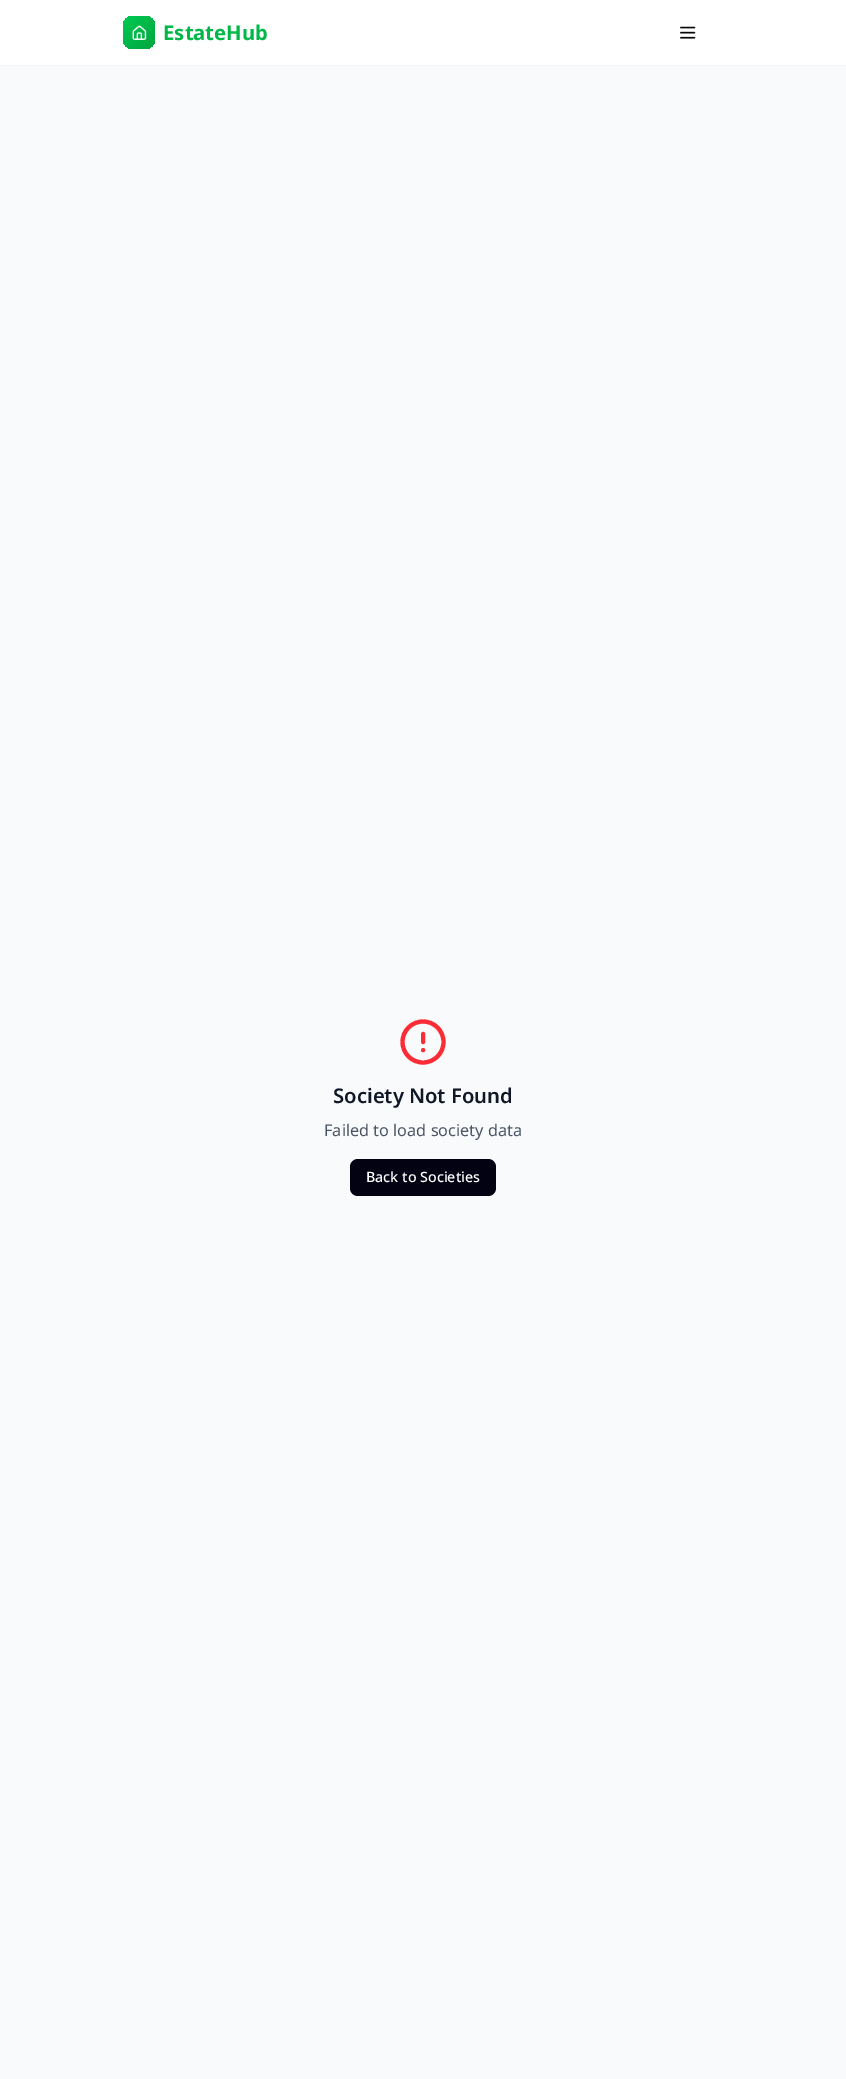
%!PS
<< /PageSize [846 2079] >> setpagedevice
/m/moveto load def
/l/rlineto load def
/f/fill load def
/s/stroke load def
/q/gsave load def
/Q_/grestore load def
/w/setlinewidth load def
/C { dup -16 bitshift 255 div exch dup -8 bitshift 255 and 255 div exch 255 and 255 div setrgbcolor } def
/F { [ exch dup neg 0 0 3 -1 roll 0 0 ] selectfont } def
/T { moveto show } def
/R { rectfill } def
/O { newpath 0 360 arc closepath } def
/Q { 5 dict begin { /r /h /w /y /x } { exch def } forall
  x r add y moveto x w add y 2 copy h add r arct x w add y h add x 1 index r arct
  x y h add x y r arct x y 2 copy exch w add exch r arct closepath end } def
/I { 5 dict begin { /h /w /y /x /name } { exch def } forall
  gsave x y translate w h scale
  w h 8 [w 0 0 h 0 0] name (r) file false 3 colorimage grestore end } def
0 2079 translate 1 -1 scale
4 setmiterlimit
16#FFFFFF C
0 0 846 2079 R
16#F5F5F5 C
0 65 846 1 R
q 123 16 32 33 10 Q clip newpath
<< /ShadingType 2 /ColorSpace /DeviceRGB /Coords [123 16 155 49] /Extend [true true] /Function << /FunctionType 2 /Domain [0 1] /C0 [0 .788 .318] /C1 [0 .651 .243] /N 1 >> >> shfill Q_
(1.rgb) 132 25 15 15 I
/NotoSans-Bold 20.25 F
16#00B848 C
(EstateHub) 163 40 T
(2.rgb) 680 26 16 13 I
16#F9FAFB C
0 66 846 2013 R
16#FB2C36 C
4.1 w
423 1042 20.5 O s
1 setlinecap
1 setlinejoin
423 1034 m 0 8 l 423 1050 m 0 0 l s
/NotoSans-SemiBold 20.25 F
16#101828 C
(Society Not Found) 333 1103 T
/NotoSans-Regular 16.25 F
16#4A5565 C
(Failed to load society data) 324 1136 T
16#030213 C
350 1159 146 37 8 Q f
/NotoSans-Medium 14.25 F
16#FFFFFF C
(Back to Societies) 366 1182 T
showpage
